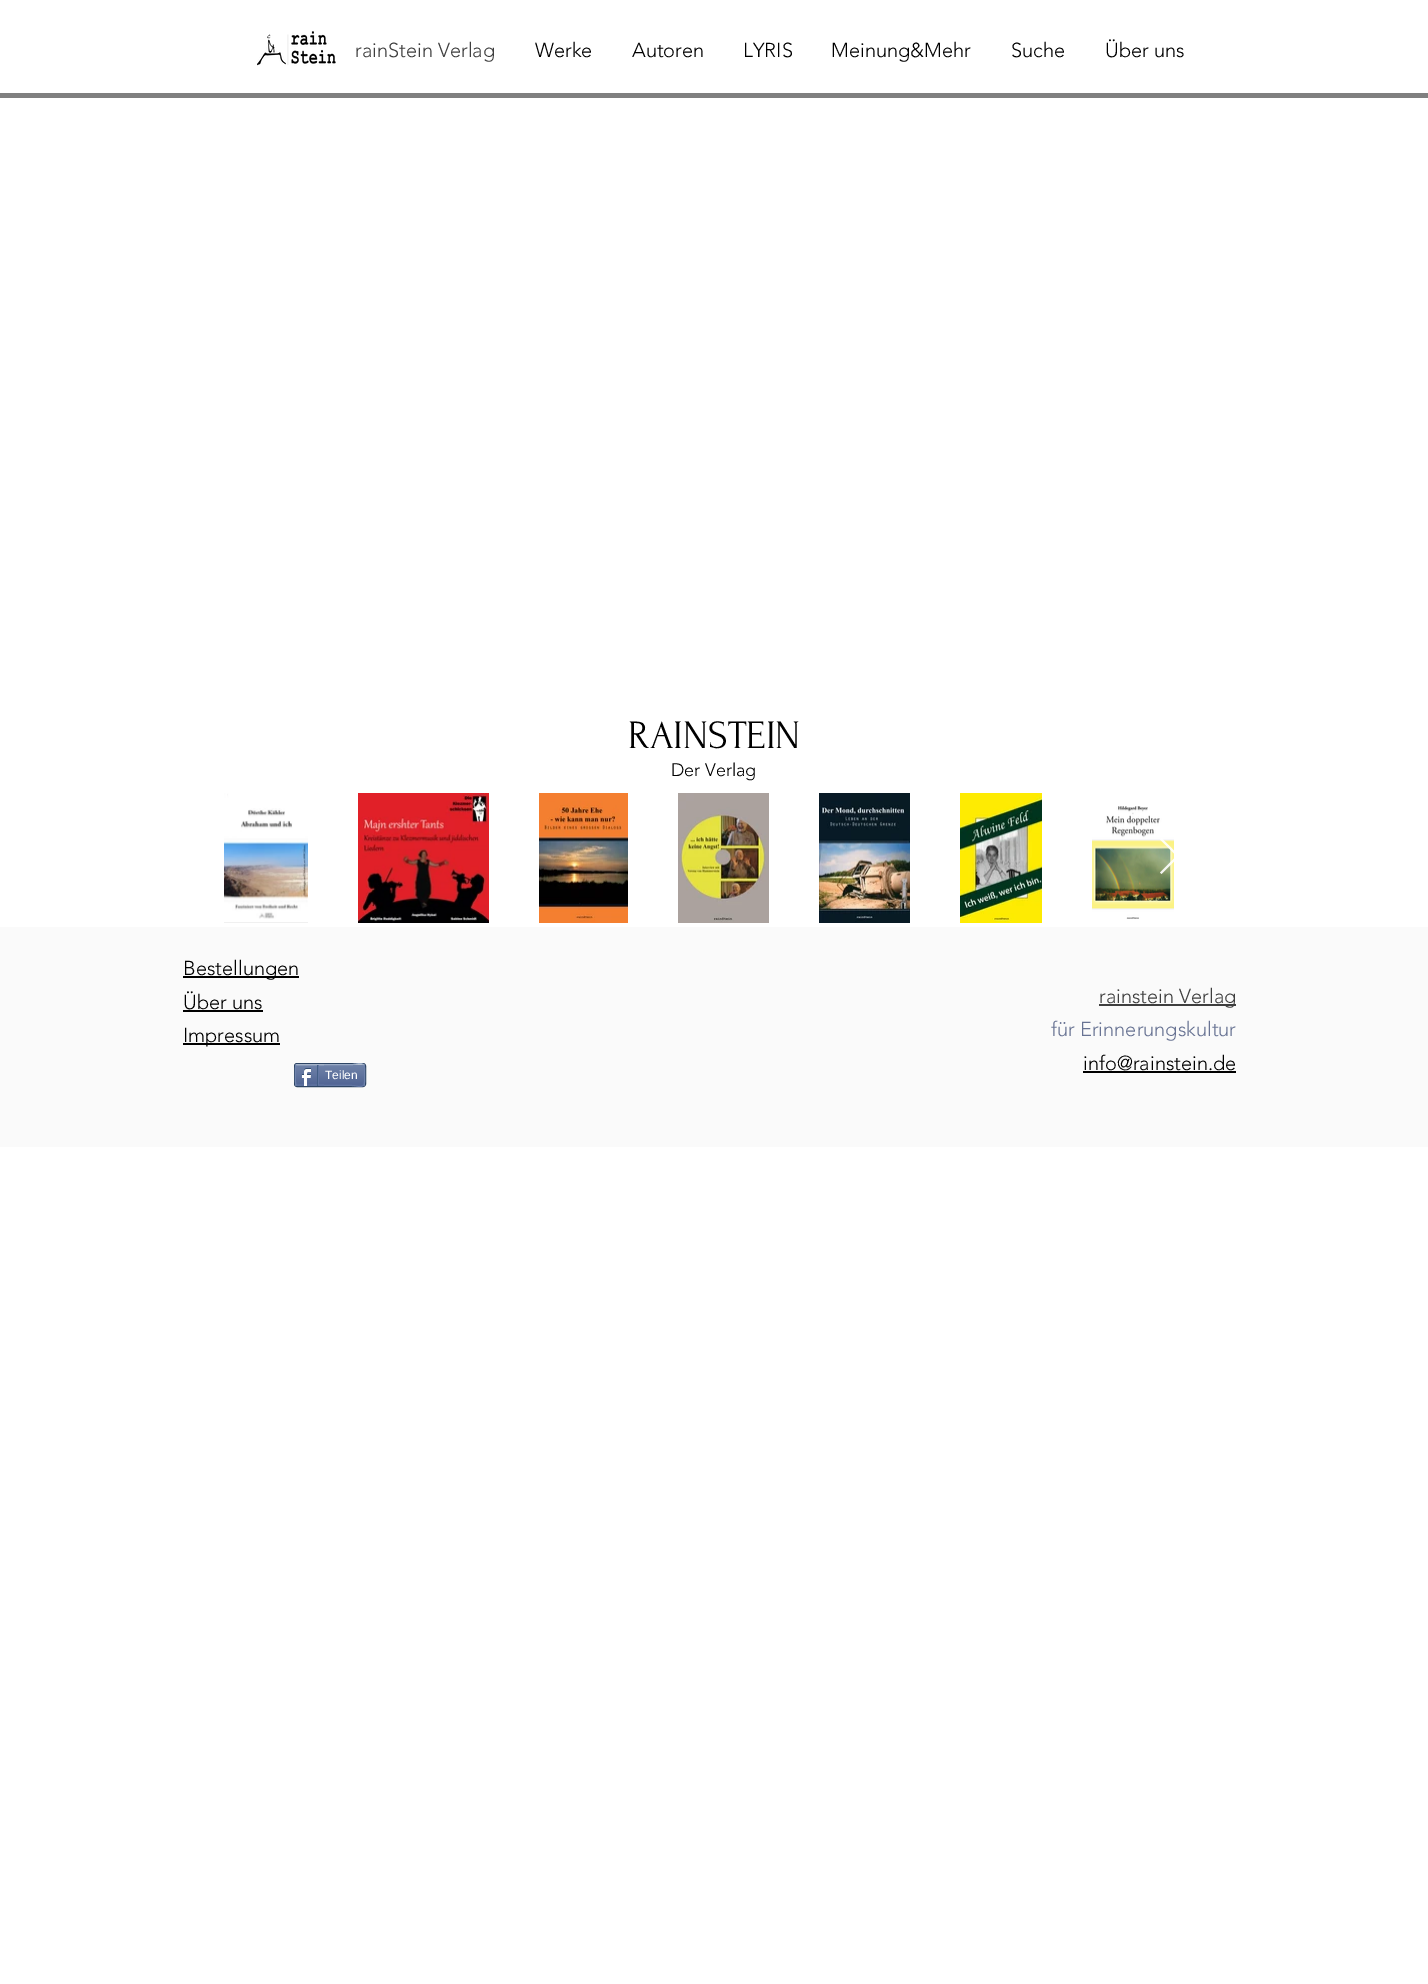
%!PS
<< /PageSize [1428 1984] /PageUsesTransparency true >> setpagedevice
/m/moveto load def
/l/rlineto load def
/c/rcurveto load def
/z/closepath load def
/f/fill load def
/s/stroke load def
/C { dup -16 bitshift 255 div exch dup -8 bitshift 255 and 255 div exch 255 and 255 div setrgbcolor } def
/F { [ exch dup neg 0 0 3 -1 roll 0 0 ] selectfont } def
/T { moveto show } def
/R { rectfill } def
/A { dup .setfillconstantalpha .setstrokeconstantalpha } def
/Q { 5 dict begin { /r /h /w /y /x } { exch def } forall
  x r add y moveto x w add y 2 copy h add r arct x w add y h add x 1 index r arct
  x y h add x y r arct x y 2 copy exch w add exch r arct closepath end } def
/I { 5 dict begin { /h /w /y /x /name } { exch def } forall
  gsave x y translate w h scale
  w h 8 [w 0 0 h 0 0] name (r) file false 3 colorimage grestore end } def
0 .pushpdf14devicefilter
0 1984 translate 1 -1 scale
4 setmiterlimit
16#FFFFFF C
0 0 1428 1984 R
(1.rgb) 257 31 79 35 I
/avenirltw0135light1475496-Light 20 F
16#3E3E3E C
(rainStein Verlag) 355 57 T
16#000000 C
(Werke) 535 57 T
(Autoren) 632 57 T
(LYRIS) 743 57 T
(Meinung&Mehr) 831 57 T
(Suche) 1011 57 T
(Über uns) 1105 57 T
16#808080 C
0 93 1428 5 R
/Forum-Regular 40 F
16#000000 C
(RAINSTEIN) 628 748 T
/avenirltw0135light1475496-Light 18 F
(Der Verlag) 671 776 T
(2.rgb) 224 793 84 130 I
(3.rgb) 358 793 131 130 I
(4.rgb) 539 793 89 130 I
(5.rgb) 678 793 91 130 I
(6.rgb) 819 793 91 130 I
(7.rgb) 960 793 82 130 I
(8.rgb) 1092 806 82 113 I
0.9 A
16#FFFFFF C
1160 839.5 m 1.5 -1.5 l 18 18 l -18 18 l -1.5 -1.5 l 16.5 -16.5 l z f
1 A
16#FAFAFA C
0 927 1428 220 R
16#000000 C
183 976 116 2 R
/avenirltw0135light1475496-Light 20 F
(Bestellungen) 183 975 T
(Über uns) 183 1009 T
183 1010 80 2 R
183 1043 97 2 R
(Impressum) 183 1042 T
16#2D4565 C
294.5 1063.5 71 23 2.5 Q s
(9.rgb) 295 1065 70 21 I
16#9AABC6 C
296 1065 m 56 -.5 l 4 0 9 -2.5 12 .5 c s
16#6F83AD C
364 1065 m 1 .5 1 19.5 0 20 c s
16#6176A3 C
364 1085 m -3 3 -8 .5 -12 .5 c -56 -.5 l s
16#6F83AD C
296 1085 m -1 -.5 -1 -19.5 0 -20 c s
(10.rgb) 301 1068 10 18 I
16#425E85 C
317 1065 1 21 R
/LiberationSans-Regular 12 F
16#FFFFFF C
(Teilen) 325 1079 T
16#6176A3 C
318 1065 1 20 R
16#3E3E3E C
1099 1004 137 2 R
/avenirltw0135light1475496-Light 20 F
(rainstein Verlag) 1099 1003 T
16#687393 C
(für Erinnerungskultur) 1051 1036 T
16#000000 C
(info@rainstein.de) 1083 1070 T
1083 1071 153 2 R
.poppdf14devicefilter showpage
